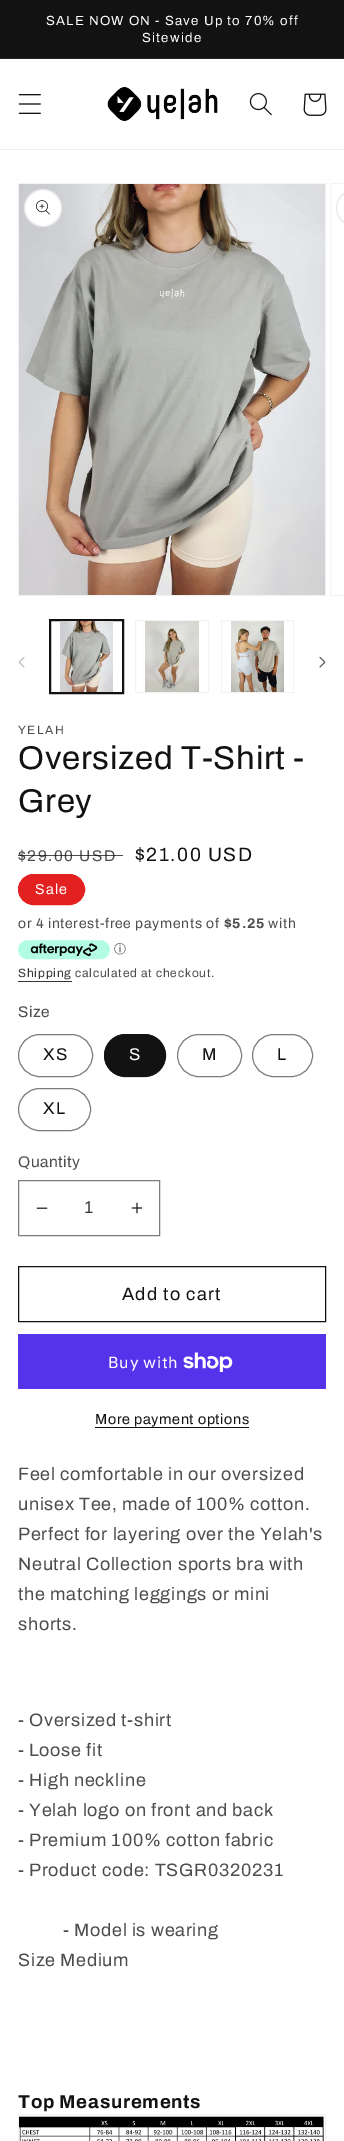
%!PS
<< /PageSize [344 2141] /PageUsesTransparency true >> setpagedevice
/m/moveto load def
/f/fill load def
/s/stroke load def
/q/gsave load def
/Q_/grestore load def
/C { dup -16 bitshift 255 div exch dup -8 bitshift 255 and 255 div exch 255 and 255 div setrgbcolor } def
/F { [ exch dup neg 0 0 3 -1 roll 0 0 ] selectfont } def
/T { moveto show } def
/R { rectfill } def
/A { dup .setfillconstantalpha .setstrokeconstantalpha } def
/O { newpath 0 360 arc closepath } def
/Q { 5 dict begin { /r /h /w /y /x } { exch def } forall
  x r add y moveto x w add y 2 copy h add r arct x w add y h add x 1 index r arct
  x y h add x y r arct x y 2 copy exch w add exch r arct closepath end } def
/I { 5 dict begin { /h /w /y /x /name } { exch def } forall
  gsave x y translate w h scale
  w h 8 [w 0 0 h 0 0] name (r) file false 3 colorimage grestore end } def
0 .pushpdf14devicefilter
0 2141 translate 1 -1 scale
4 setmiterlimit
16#FFFFFF C
0 0 344 2141 R
16#121212 C
0 0 344 58 R
16#252525 C
0 58 344 1 R
/Archivo-Regular 13.25 F
16#FFFFFF C
46 25 m 1.2 0 (SALE NOW ON - Save Up to 70% off) ashow
142 42 m 1.2 0 (Sitewide) ashow
16#ECECEC C
0 149 344 1 R
(1.rgb) 18 94 23 20 I
(2.rgb) 107 86 111 36 I
(3.rgb) 249 93 23 23 I
(4.rgb) 303 93 24 23 I
16#F3F3F3 C
18.5 183.5 307 412 rectstroke
(5.rgb) 19 184 306 411 I
16#FFFFFF C
43 208 19 O f
0.1 A
16#121212 C
43 208 18.5 O s
1 A
(6.rgb) 36 200 14 15 I
16#F3F3F3 C
330.5 183.5 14 412 rectstroke
16#E7E7E7 C
336.5 189.5 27 37 18.5 Q s
(7.rgb) 18 657 7 11 I
16#121212 C
49.5 619.5 74 74 rectstroke
50.5 620.5 72 72 rectstroke
(8.rgb) 60 621 53 71 I
16#F3F3F3 C
135.5 620.5 73 72 rectstroke
(9.rgb) 145 621 54 71 I
221.5 620.5 72 72 rectstroke
(10.rgb) 231 621 53 71 I
(11.rgb) 319 656 7 12 I
/Archivo-Regular 12 F
16#4D4D4D C
18 734 m 1.5 0 (YELAH) ashow
/Archivo-Regular 33 F
16#121212 C
18 769 m .7 0 (Oversized T-Shirt -) ashow
18 812 m .7 0 (Grey) ashow
/Archivo-Regular 15.5 F
16#4D4D4D C
18 861 m 1.5 0 ($29.00 USD) ashow
0.75 A
16#121212 C
18 855 105 1 R
/Archivo-Regular 19.25 F
1 A
135 861 m 1.5 0 ($21.00 USD) ashow
16#E22120 C
18.5 874.5 66 30 15 Q q f Q_
s
/Archivo-Regular 14.4 F
16#FFFFFF C
35 894 m 1.2 0 (Sale) ashow
/Archivo-Regular 14 F
16#4D4D4D C
18 928 m .7 0 (or 4 interest-free payments of) ashow
/Archivo-Bold 14 F
224 928 m .7 0 ($5.25) ashow
/Archivo-Regular 14 F
268 928 m .7 0 (with) ashow
(12.rgb) 18 940 92 20 I
/WenQuanYiZenHei-Medium 12 F
(ⓘ) 114 953 T
/Archivo-Regular 12 F
16#363636 C
18 977 m .8 0 (Shipping) ashow
18 981 54 1 R
16#4D4D4D C
75 977 m .8 0 (calculated at checkout.) ashow
/Archivo-Regular 15.5 F
18 1017 m .5 0 (Size) ashow
16#7D7D7D C
18.5 1034.5 74 42 21 Q s
/Archivo-Regular 17 F
16#121212 C
43 1060 m 1.2 0 (XS) ashow
104 1034 62 43 21.5 Q f
0.55 A
104.5 1034.5 61 42 21 Q s
1 A
16#FFFFFF C
129 1060 m 1.2 0 (S) ashow
16#7D7D7D C
177.5 1034.5 64 42 21 Q s
16#121212 C
202 1060 m 1.2 0 (M) ashow
16#7D7D7D C
252.5 1034.5 60 42 21 Q s
16#121212 C
277 1060 m 1.2 0 (L) ashow
16#7D7D7D C
18.5 1088.5 72 42 21 Q s
16#121212 C
43 1114 m 1.2 0 (XL) ashow
/Archivo-Regular 15.5 F
16#4D4D4D C
18 1167 m .5 0 (Quantity) ashow
(13.rgb) 36 1207 12 2 I
(14.rgb) 131 1202 12 12 I
16#7D7D7D C
18.5 1180.5 141 55 rectstroke
/LiberationSans-Regular 17 F
16#363636 C
(1) 84 1213 T
16#121212 C
18.5 1266.5 307 55 rectstroke
/Archivo-Regular 18 F
122 1300 m 1.2 0 (Add to cart) ashow
16#5433EB C
18 1334 308 55 R
/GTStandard-Regular 16 F
16#FFFFFF C
108 1368 m .7 0 (Buy with) ashow
(15.rgb) 183 1352 50 20 I
/Archivo-Regular 14.4 F
16#121212 C
95 1424 m .6 0 (More payment options) ashow
95 1427 154 1 R
/Archivo-Regular 18 F
16#4D4D4D C
18 1480 m .7 0 (Feel comfortable in our oversized) ashow
18 1510 m .7 0 (unisex Tee, made of 100% cotton.) ashow
18 1540 m .7 0 (Perfect for layering over the Yelah's) ashow
18 1570 m .7 0 (Neutral Collection sports bra with) ashow
18 1600 m .7 0 (the matching leggings or mini) ashow
18 1630 m .7 0 (shorts.) ashow
18 1726 m .7 0 (- Oversized t-shirt) ashow
18 1756 m .7 0 (- Loose fit) ashow
18 1786 m .7 0 (- High neckline) ashow
18 1816 m .7 0 (- Yelah logo on front and back) ashow
18 1846 m .7 0 (- Premium 100% cotton fabric) ashow
18 1876 m .7 0 (- Product code: TSGR0320231) ashow
63 1936 m .7 0 (- Model is wearing) ashow
18 1966 m .7 0 (Size Medium) ashow
/Archivo-Bold 18.75 F
16#121212 C
18 2108 m .7 0 (Top Measurements) ashow
16#F3F3F3 C
18.5 2114.5 307 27 rectstroke
(16.rgb) 19 2116 305 25 I
.poppdf14devicefilter showpage
